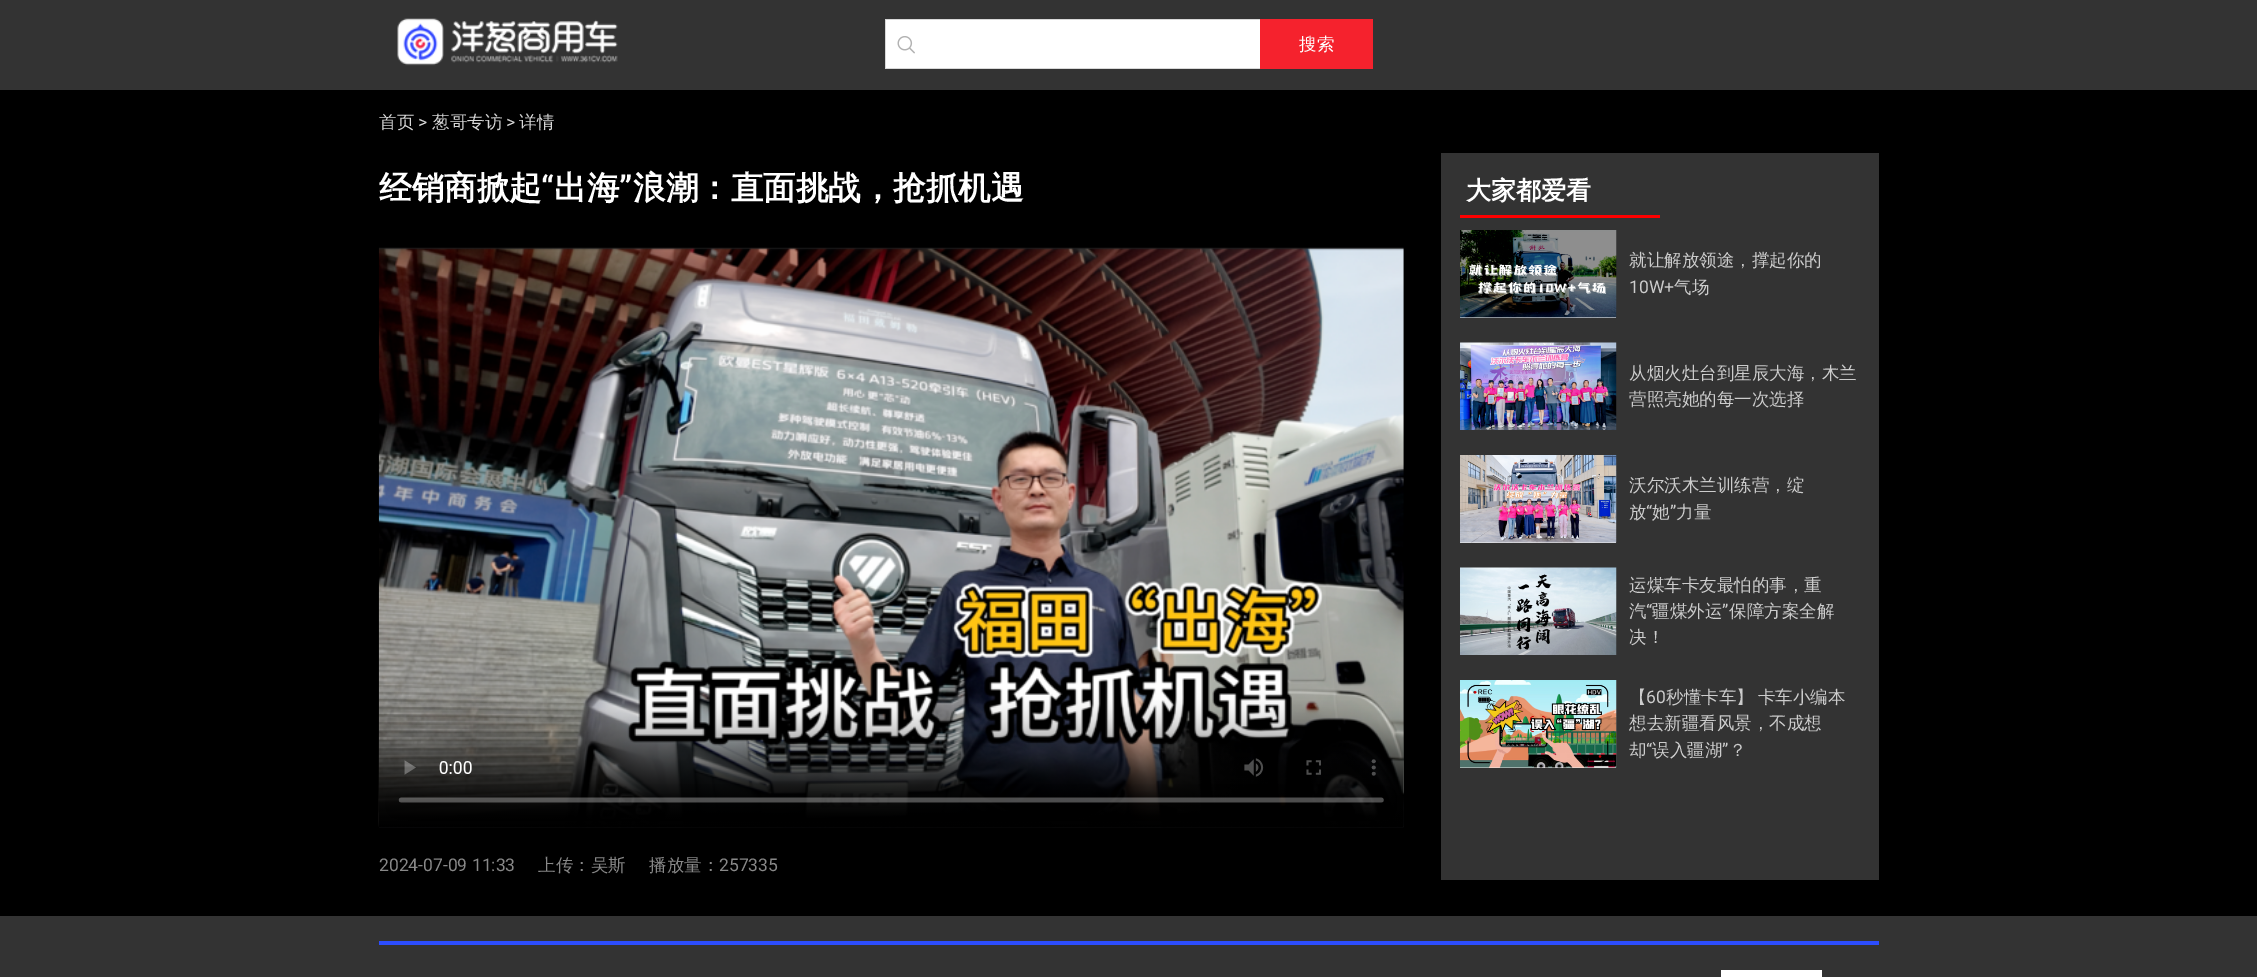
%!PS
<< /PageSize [2257 977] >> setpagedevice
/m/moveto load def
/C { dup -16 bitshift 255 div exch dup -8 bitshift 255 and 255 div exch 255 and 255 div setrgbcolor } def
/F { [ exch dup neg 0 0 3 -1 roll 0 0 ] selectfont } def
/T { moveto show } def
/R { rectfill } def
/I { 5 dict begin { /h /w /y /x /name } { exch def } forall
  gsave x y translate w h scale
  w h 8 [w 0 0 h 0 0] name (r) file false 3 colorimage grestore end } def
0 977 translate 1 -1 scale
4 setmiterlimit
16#333333 C
0 0 2257 977 R
(1.rgb) 397 18 221 48 I
16#FFFFFF C
886 20 374 48 R
16#D8D8D8 C
885 19 375 1 R
885 68 375 1 R
885 19 1 50 R
(2.rgb) 897 36 18 18 I
16#F5222D C
1260 19 113 50 R
/WenQuanYiZenHei-Medium 17.5 F
16#FFFFFF C
(搜索) 1299 50 T
16#000000 C
0 90 2257 826 R
16#D8D8D8 C
(首页) 379 128 T
/Roboto-Regular 17.5 F
(>) 418 128 T
/WenQuanYiZenHei-Medium 17.5 F
(葱哥专访) 432 128 T
/Roboto-Regular 17.5 F
(>) 506 128 T
/WenQuanYiZenHei-Medium 17.5 F
(详情) 519 128 T
/WenQuanYiZenHei-Bold 32.5 F
16#FFFFFF C
(经销商掀起) 379 199 T
/Roboto-Bold 32.5 F
(“) 541 199 T
/WenQuanYiZenHei-Bold 32.5 F
(出海) 554 199 T
/Roboto-Bold 32.5 F
(”) 619 199 T
/WenQuanYiZenHei-Bold 32.5 F
(浪潮：直面挑战，抢抓机遇) 633 199 T
(3.rgb) 378 247 1026 581 I
/Roboto-Regular 17.5 F
16#888888 C
(2024-07-09 11:33) 379 871 T
/WenQuanYiZenHei-Medium 17.5 F
(上传：吴斯) 538 871 T
(播放量：) 649 871 T
/Roboto-Regular 17.5 F
(257335) 719 871 T
16#333333 C
1441 153 438 727 R
16#FF0000 C
1460 215 200 3 R
/WenQuanYiZenHei-Bold 25 F
16#FFFFFF C
(大家都爱看) 1466 199 T
16#EEEEEE C
1460 317 156 1 R
(4.rgb) 1460 230 157 88 I
/WenQuanYiZenHei-Medium 17.5 F
16#CCCCCC C
(就让解放领途，撑起你的) 1629 266 T
/Roboto-Regular 17.5 F
(10W+) 1629 293 T
/WenQuanYiZenHei-Medium 17.5 F
(气场) 1674 293 T
(5.rgb) 1460 342 157 88 I
(从烟火灶台到星辰大海，木兰) 1629 379 T
(营照亮她的每一次选择) 1629 405 T
16#EEEEEE C
1460 542 156 1 R
(6.rgb) 1460 455 157 88 I
16#CCCCCC C
(沃尔沃木兰训练营，绽) 1629 491 T
(放) 1629 518 T
/Roboto-Regular 17.5 F
(“) 1646 518 T
/WenQuanYiZenHei-Medium 17.5 F
(她) 1652 518 T
/Roboto-Regular 17.5 F
(”) 1670 518 T
/WenQuanYiZenHei-Medium 17.5 F
(力量) 1676 518 T
(7.rgb) 1460 567 157 88 I
(运煤车卡友最怕的事，重) 1629 591 T
(汽) 1629 617 T
/Roboto-Regular 17.5 F
(“) 1646 617 T
/WenQuanYiZenHei-Medium 17.5 F
(疆煤外运) 1652 617 T
/Roboto-Regular 17.5 F
(”) 1722 617 T
/WenQuanYiZenHei-Medium 17.5 F
(保障方案全解) 1729 617 T
(决！) 1629 643 T
16#EEEEEE C
1460 767 156 1 R
(8.rgb) 1460 680 157 88 I
16#CCCCCC C
(【) 1629 703 T
/Roboto-Regular 17.5 F
(60) 1646 703 T
/WenQuanYiZenHei-Medium 17.5 F
1666 703 m -1 0 32 (秒懂卡车】 卡车小编本) widthshow
(想去新疆看风景，不成想) 1629 729 T
(却) 1629 756 T
/Roboto-Regular 17.5 F
(“) 1646 756 T
/WenQuanYiZenHei-Medium 17.5 F
(误入疆湖) 1652 756 T
/Roboto-Regular 17.5 F
(”) 1722 756 T
/WenQuanYiZenHei-Medium 17.5 F
(？) 1729 756 T
16#2C4DFE C
379 941 1500 4 R
16#FFFFFF C
1721 970 101 7 R
showpage
